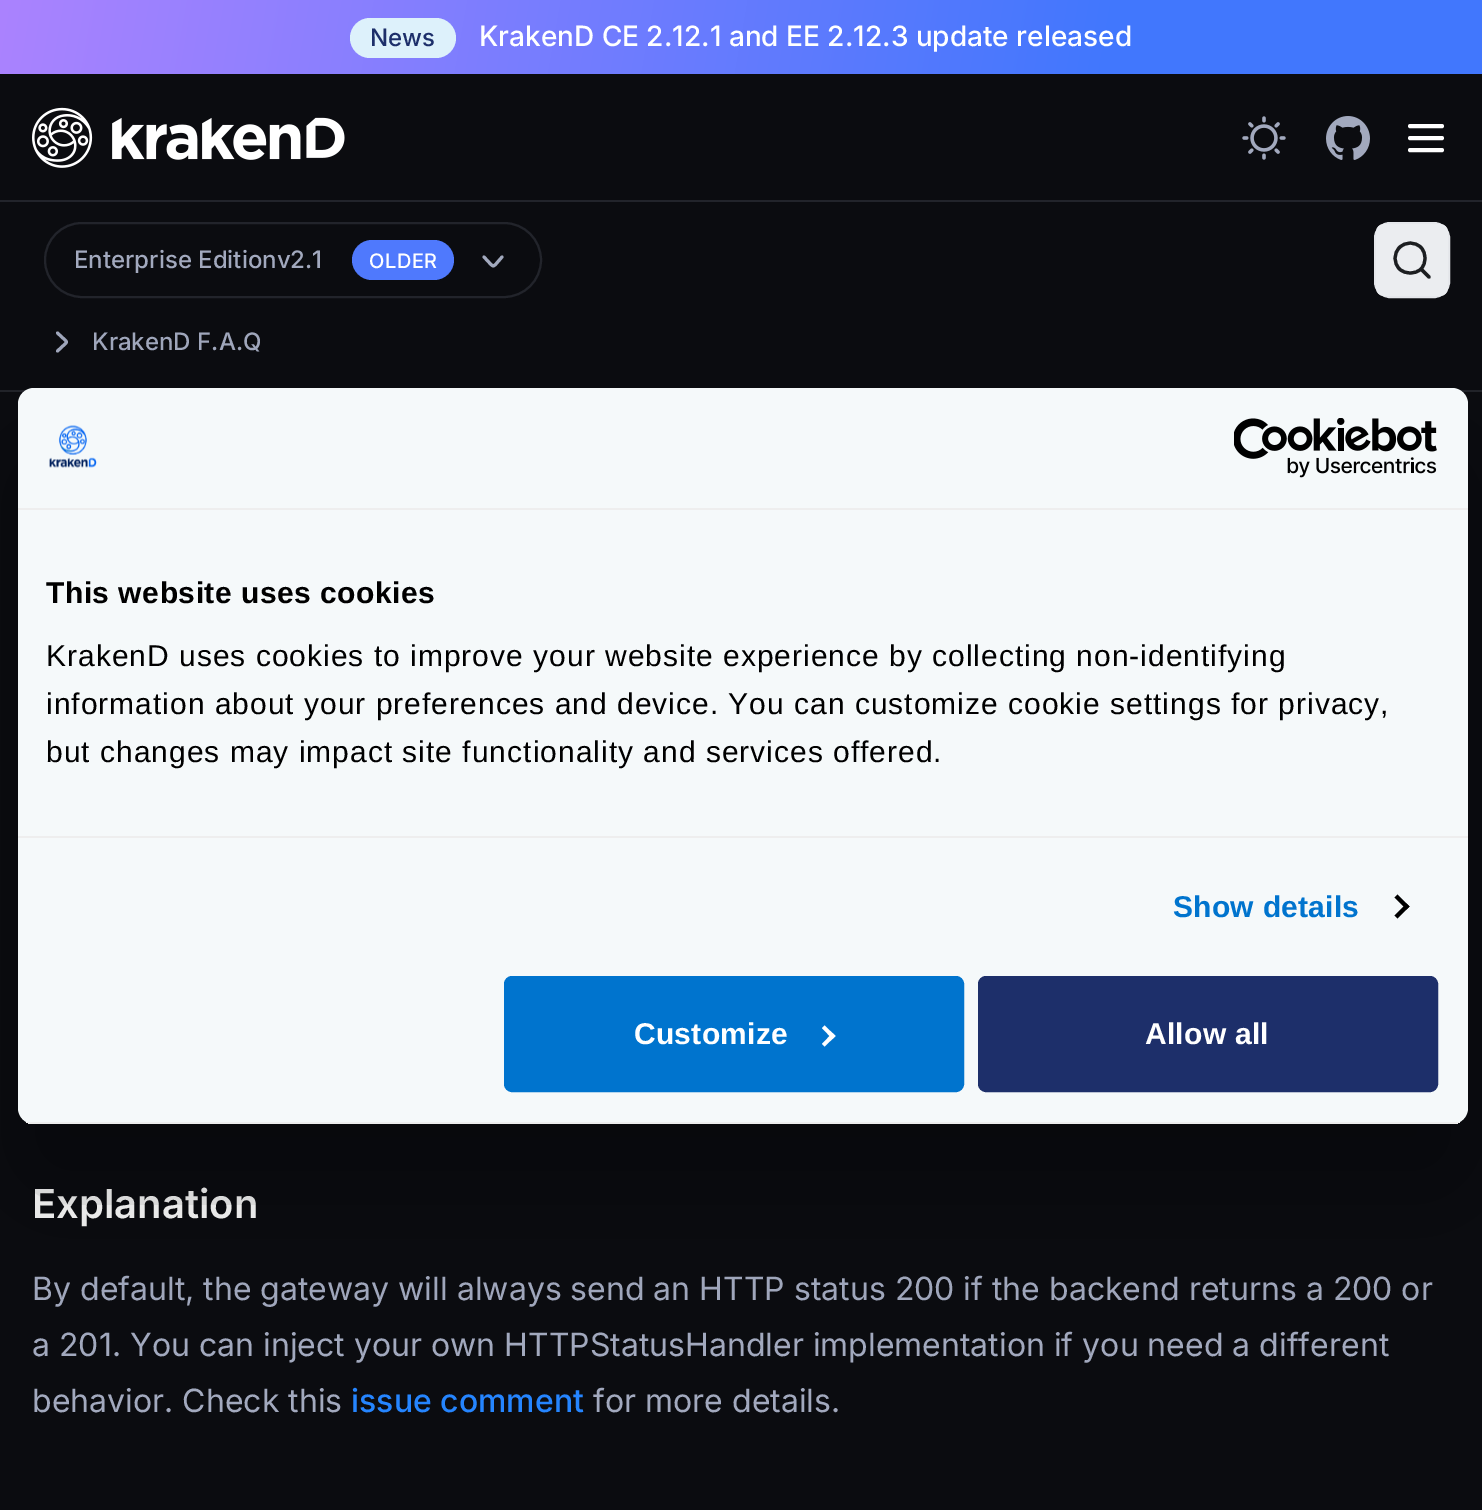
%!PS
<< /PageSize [1482 1510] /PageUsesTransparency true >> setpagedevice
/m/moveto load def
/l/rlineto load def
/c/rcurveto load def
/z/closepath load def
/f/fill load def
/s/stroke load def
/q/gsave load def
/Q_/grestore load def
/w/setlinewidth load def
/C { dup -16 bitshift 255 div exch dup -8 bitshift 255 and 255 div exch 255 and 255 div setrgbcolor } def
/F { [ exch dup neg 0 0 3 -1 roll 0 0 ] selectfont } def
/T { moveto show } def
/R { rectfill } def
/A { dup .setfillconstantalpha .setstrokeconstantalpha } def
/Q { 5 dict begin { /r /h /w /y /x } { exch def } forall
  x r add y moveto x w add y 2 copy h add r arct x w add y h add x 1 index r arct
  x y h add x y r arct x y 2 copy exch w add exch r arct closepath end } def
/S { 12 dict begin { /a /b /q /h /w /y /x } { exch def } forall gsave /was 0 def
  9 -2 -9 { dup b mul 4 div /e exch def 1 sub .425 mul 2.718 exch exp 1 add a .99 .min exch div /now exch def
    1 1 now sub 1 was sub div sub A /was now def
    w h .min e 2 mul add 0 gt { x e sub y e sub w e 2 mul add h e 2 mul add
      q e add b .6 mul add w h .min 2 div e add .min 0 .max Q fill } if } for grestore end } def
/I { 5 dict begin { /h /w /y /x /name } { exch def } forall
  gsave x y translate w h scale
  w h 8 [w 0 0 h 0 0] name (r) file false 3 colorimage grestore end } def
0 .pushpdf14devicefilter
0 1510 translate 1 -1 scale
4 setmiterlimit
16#0B0C10 C
0 0 1482 1510 R
q 0 0 m 1482 0 l 0 74 l -1482 0 l z clip newpath
<< /ShadingType 2 /ColorSpace /DeviceRGB /Coords [16 -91 1466 165] /Extend [true true] /Function << /FunctionType 3 /Domain [0 1] /Functions [<< /FunctionType 2 /Domain [0 1] /C0 [.671 .514 1] /C1 [.255 .467 .992] /N 1 >> << /FunctionType 2 /Domain [0 1] /C0 [.255 .467 .992] /C1 [.255 .467 .992] /N 1 >>] /Bounds [.75] /Encode [0 1 0 1] >> >> shfill Q_
16#DDF1FB C
350 18 106 40 20 Q f
/Inter-Medium 24 F
16#1D2F6A C
(News) 370 46 T
/Inter-Medium 28 F
16#FFFFFF C
(KrakenD CE 2.12.1 and EE 2.12.3 update released) 479 46 T
(1.rgb) 32 107 313 61 I
(2.rgb) 1242 116 44 44 I
(3.rgb) 1326 116 44 44 I
4 w
1 setlinecap
1 setlinejoin
1410 126 m 32 0 l 1410 138 m 32 0 l 1410 150 m 32 0 l s
16#22242B C
0 200 1482 2 R
0 390 1482 2 R
2 w
0 setlinecap
0 setlinejoin
45 223 496 74 37 Q s
/Inter-Medium 24 F
16#A2A9BE C
(Enterprise Editionv2.1) 74 268 T
16#4F79FD C
352 240 102 40 20 Q f
/Inter-Medium 20 F
16#FFFFFF C
369 268 m .5 0 (OLDER) ashow
16#A2A9BE C
3 w
1 setlinecap
1 setlinejoin
502 257 m -6.5 7.5 l -2.5 2 -2 2 -4.5 0 c -7 -7.5 l s
16#E5E7EB C
2 w
0 setlinecap
0 setlinejoin
1375 223 74 74 15 Q s
16#EBEDF0 C
1376 224 72 72 8 Q f
16#1C1E21 C
3.2 w
1 setlinecap
1 setlinejoin
1421 269 m 8 8 l -8 -8 l -6 5.5 -15.5 5.5 -21.5 0 c -6 -6 -6 -15.5 0 -21.5 c 6 -6 15.5 -6 21.5 0 c 5.5 6 5.5 15.5 0 21.5 c z s
16#A2A9BE C
3 w
57.5 333 m 7.5 7 l 2 2 2 2 0 4 c -7.5 7 l s
/Inter-Medium 24 F
(KrakenD F.A.Q) 92 350 T
/Inter-SemiBold 40 F
16#FFFFFF C
(Explanation) 32 1218 T
/Inter-Regular 32 F
16#A2A9BE C
(By default, the gateway will always send an HTTP status 200 if the backend returns a 200 or) 32 1300 T
(a 201. You can inject your own HTTPStatusHandler implementation if you need a different) 32 1356 T
(behavior. Check this) 32 1412 T
/Inter-Medium 32 F
16#2585FF C
(issue comment) 351 1412 T
/Inter-Regular 32 F
16#A2A9BE C
(for more details.) 593 1412 T
16#000000 C
18 452 1450 736 16 68 .3 S
16#F5F9FA C
18 388 1450 736 16 Q f
16#EEEEEE C
18 508 1450 2 R
(4.rgb) 49 425 48 43 I
(5.rgb) 1234 418 203 60 I
18 836 1450 2 R
/LiberationSans-Bold 30 F
16#000000 C
46 603 m .5 0 (This website uses cookies) ashow
/LiberationSans-Regular 30 F
46 666 m 1 0 (KrakenD uses cookies to improve your website experience by collecting non-identifying) ashow
46 714 m 1 0 (information about your preferences and device. You can customize cookie settings for privacy,) ashow
46 762 m 1 0 (but changes may impact site functionality and services offered.) ashow
/LiberationSans-Bold 30 F
16#0074CE C
1173 917 m .25 0 (Show details) ashow
16#000000 C
1397.5 894.5 m 12 12 l -3 3 l -12 -12 l z f
1406.5 903.5 m 3 3 l -12 12 l -3 -3 l z f
q
18 388 1450 736 16 Q clip newpath
16#EEEEEE C
18 1122 1450 2 R
Q_
16#0074CE C
506 978 456 112 6 Q q f Q_
4 w
0 setlinecap
0 setlinejoin
s
16#FFFFFF C
634 1044 m .25 0 (Customize) ashow
824.5 1025.5 m 11 10.5 l -3 3 l -10.5 -11 l z f
832.5 1033 m 3 3 l -11 10.5 l -2.5 -2.5 l z f
16#1D2F6A C
980 978 456 112 6 Q q f Q_
s
16#FFFFFF C
1145 1044 m .25 0 (Allow all) ashow
.poppdf14devicefilter showpage
